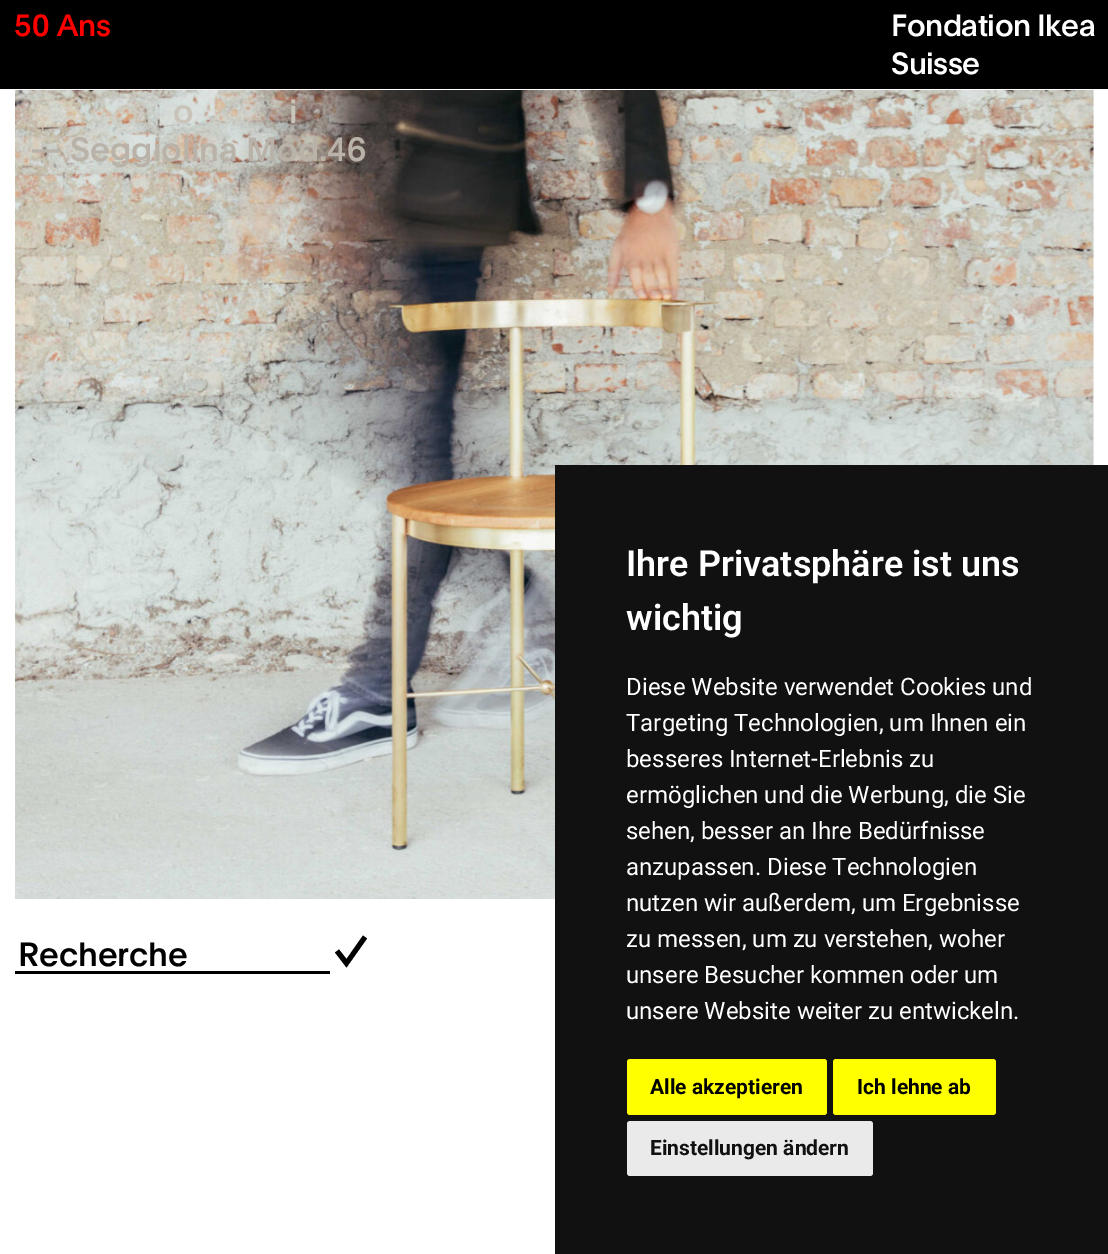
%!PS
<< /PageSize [1108 1254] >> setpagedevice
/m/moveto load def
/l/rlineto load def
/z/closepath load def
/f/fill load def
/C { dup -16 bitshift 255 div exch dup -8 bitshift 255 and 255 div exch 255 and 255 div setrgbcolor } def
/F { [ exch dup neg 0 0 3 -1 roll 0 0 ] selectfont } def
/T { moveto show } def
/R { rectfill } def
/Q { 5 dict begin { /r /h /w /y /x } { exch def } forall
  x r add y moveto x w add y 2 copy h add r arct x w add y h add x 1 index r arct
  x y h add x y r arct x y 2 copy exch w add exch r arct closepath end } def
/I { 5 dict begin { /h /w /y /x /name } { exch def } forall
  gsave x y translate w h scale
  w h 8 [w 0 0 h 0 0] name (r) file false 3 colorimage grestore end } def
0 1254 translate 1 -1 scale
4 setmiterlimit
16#FFFFFF C
0 0 1108 1254 R
16#000000 C
0 0 1108 89 R
/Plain-Medium 30 F
16#FF0000 C
(50 Ans) 14 36 T
16#FFFFFF C
891 36 m -.6 0 (Fondation Ikea) ashow
891 74 m -.6 0 (Suisse) ashow
(1.rgb) 15 90 1079 809 I
/Plain-Medium 33 F
16#C9C4B9 C
(o) 173 123 T
(i) 289 123 T
16#B9B2A9 C
(— Seggiolina Mod.46) 30 161 T
16#000000 C
15 971 315 3 R
(Recherche) 18 966 T
363 935.5 m 4 3 l -20.5 29 l -11.5 -15 l 4 -3 l 7.5 9.5 l z f
16#111111 C
555 465 553 789 R
/Roboto-SemiBold 36 F
16#FFFFFF C
(Ihre Privatsphäre ist uns) 626 576 T
(wichtig) 626 630 T
/Roboto-Regular 24 F
(Diese Website verwendet Cookies und) 626 695 T
(Targeting Technologien, um Ihnen ein) 626 731 T
(besseres Internet-Erlebnis zu) 626 767 T
(ermöglichen und die Werbung, die Sie) 626 803 T
(sehen, besser an Ihre Bedürfnisse) 626 839 T
(anzupassen. Diese Technologien) 626 875 T
(nutzen wir außerdem, um Ergebnisse) 626 911 T
(zu messen, um zu verstehen, woher) 626 947 T
(unsere Besucher kommen oder um) 626 983 T
(unsere Website weiter zu entwickeln.) 626 1019 T
16#FFFF00 C
627 1059 200 56 3 Q f
/Roboto-Bold 21 F
16#000000 C
(Alle akzeptieren) 650 1094 T
16#FFFF00 C
833 1059 163 56 3 Q f
16#000000 C
(Ich lehne ab) 857 1094 T
16#EAEAEA C
627 1121 246 55 3 Q f
16#111111 C
(Einstellungen ändern) 650 1155 T
showpage
